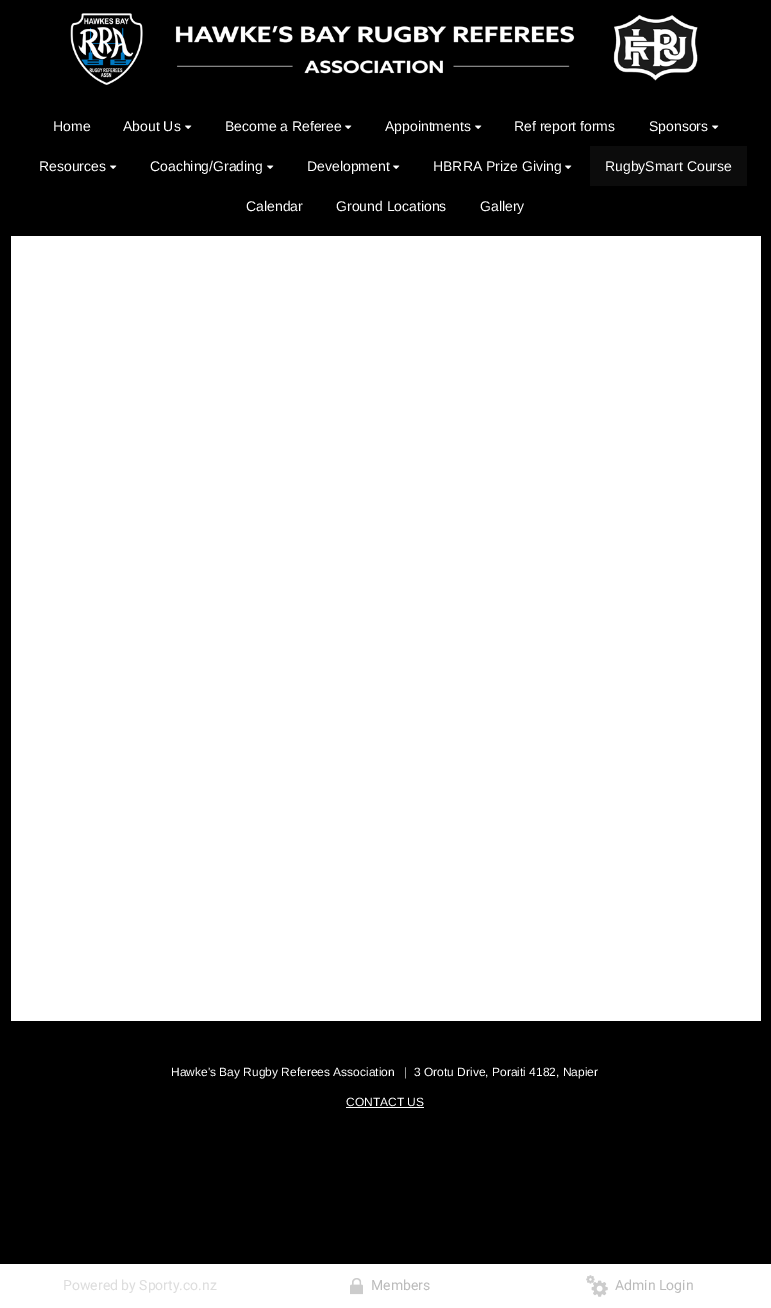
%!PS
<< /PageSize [771 1308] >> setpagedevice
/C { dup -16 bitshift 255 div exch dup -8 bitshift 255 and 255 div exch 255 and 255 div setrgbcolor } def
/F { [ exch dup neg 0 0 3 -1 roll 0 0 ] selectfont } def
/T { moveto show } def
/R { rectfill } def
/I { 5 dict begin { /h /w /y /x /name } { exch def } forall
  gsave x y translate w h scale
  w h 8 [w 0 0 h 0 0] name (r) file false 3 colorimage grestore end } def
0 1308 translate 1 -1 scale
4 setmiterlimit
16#000000 C
0 0 771 1308 R
(1.rgb) 70 13 628 72 I
/LiberationSans-Regular 14 F
16#FFFFFF C
(Home) 53 131 T
(About Us) 123 131 T
(2.rgb) 185 125 7 4 I
(Become a Referee) 225 131 T
(2.rgb) 345 125 7 4 I
(Appointments) 385 131 T
(2.rgb) 475 125 7 4 I
(Ref report forms) 514 131 T
(Sponsors) 649 131 T
(2.rgb) 712 125 7 4 I
(Resources) 39 171 T
(2.rgb) 110 165 7 4 I
(Coaching/Grading) 150 171 T
(2.rgb) 267 165 7 4 I
(Development) 307 171 T
(2.rgb) 393 165 7 4 I
(HBRRA Prize Giving) 433 171 T
(2.rgb) 565 165 7 4 I
16#0C0C0C C
590 146 157 40 R
16#FFFFFF C
(RugbySmart Course) 605 171 T
(Calendar) 246 211 T
(Ground Locations) 336 211 T
(Gallery) 480 211 T
11 236 750 785 R
/LiberationSans-Regular 12 F
(Hawke's Bay Rugby Referees Association) 171 1076 T
16#999999 C
(|) 404 1076 T
16#FFFFFF C
(3 Orotu Drive, Poraiti 4182, Napier) 414 1076 T
(CONTACT US) 346 1106 T
346 1107 78 1 R
0 1264 771 44 R
/Roboto-Regular 14 F
16#DDDDDD C
(Powered by Sporty.co.nz) 63 1290 T
(3.rgb) 350 1278 13 17 I
16#BBBBBB C
(Members) 371 1290 T
(4.rgb) 586 1275 22 22 I
(Admin Login) 615 1290 T
showpage
